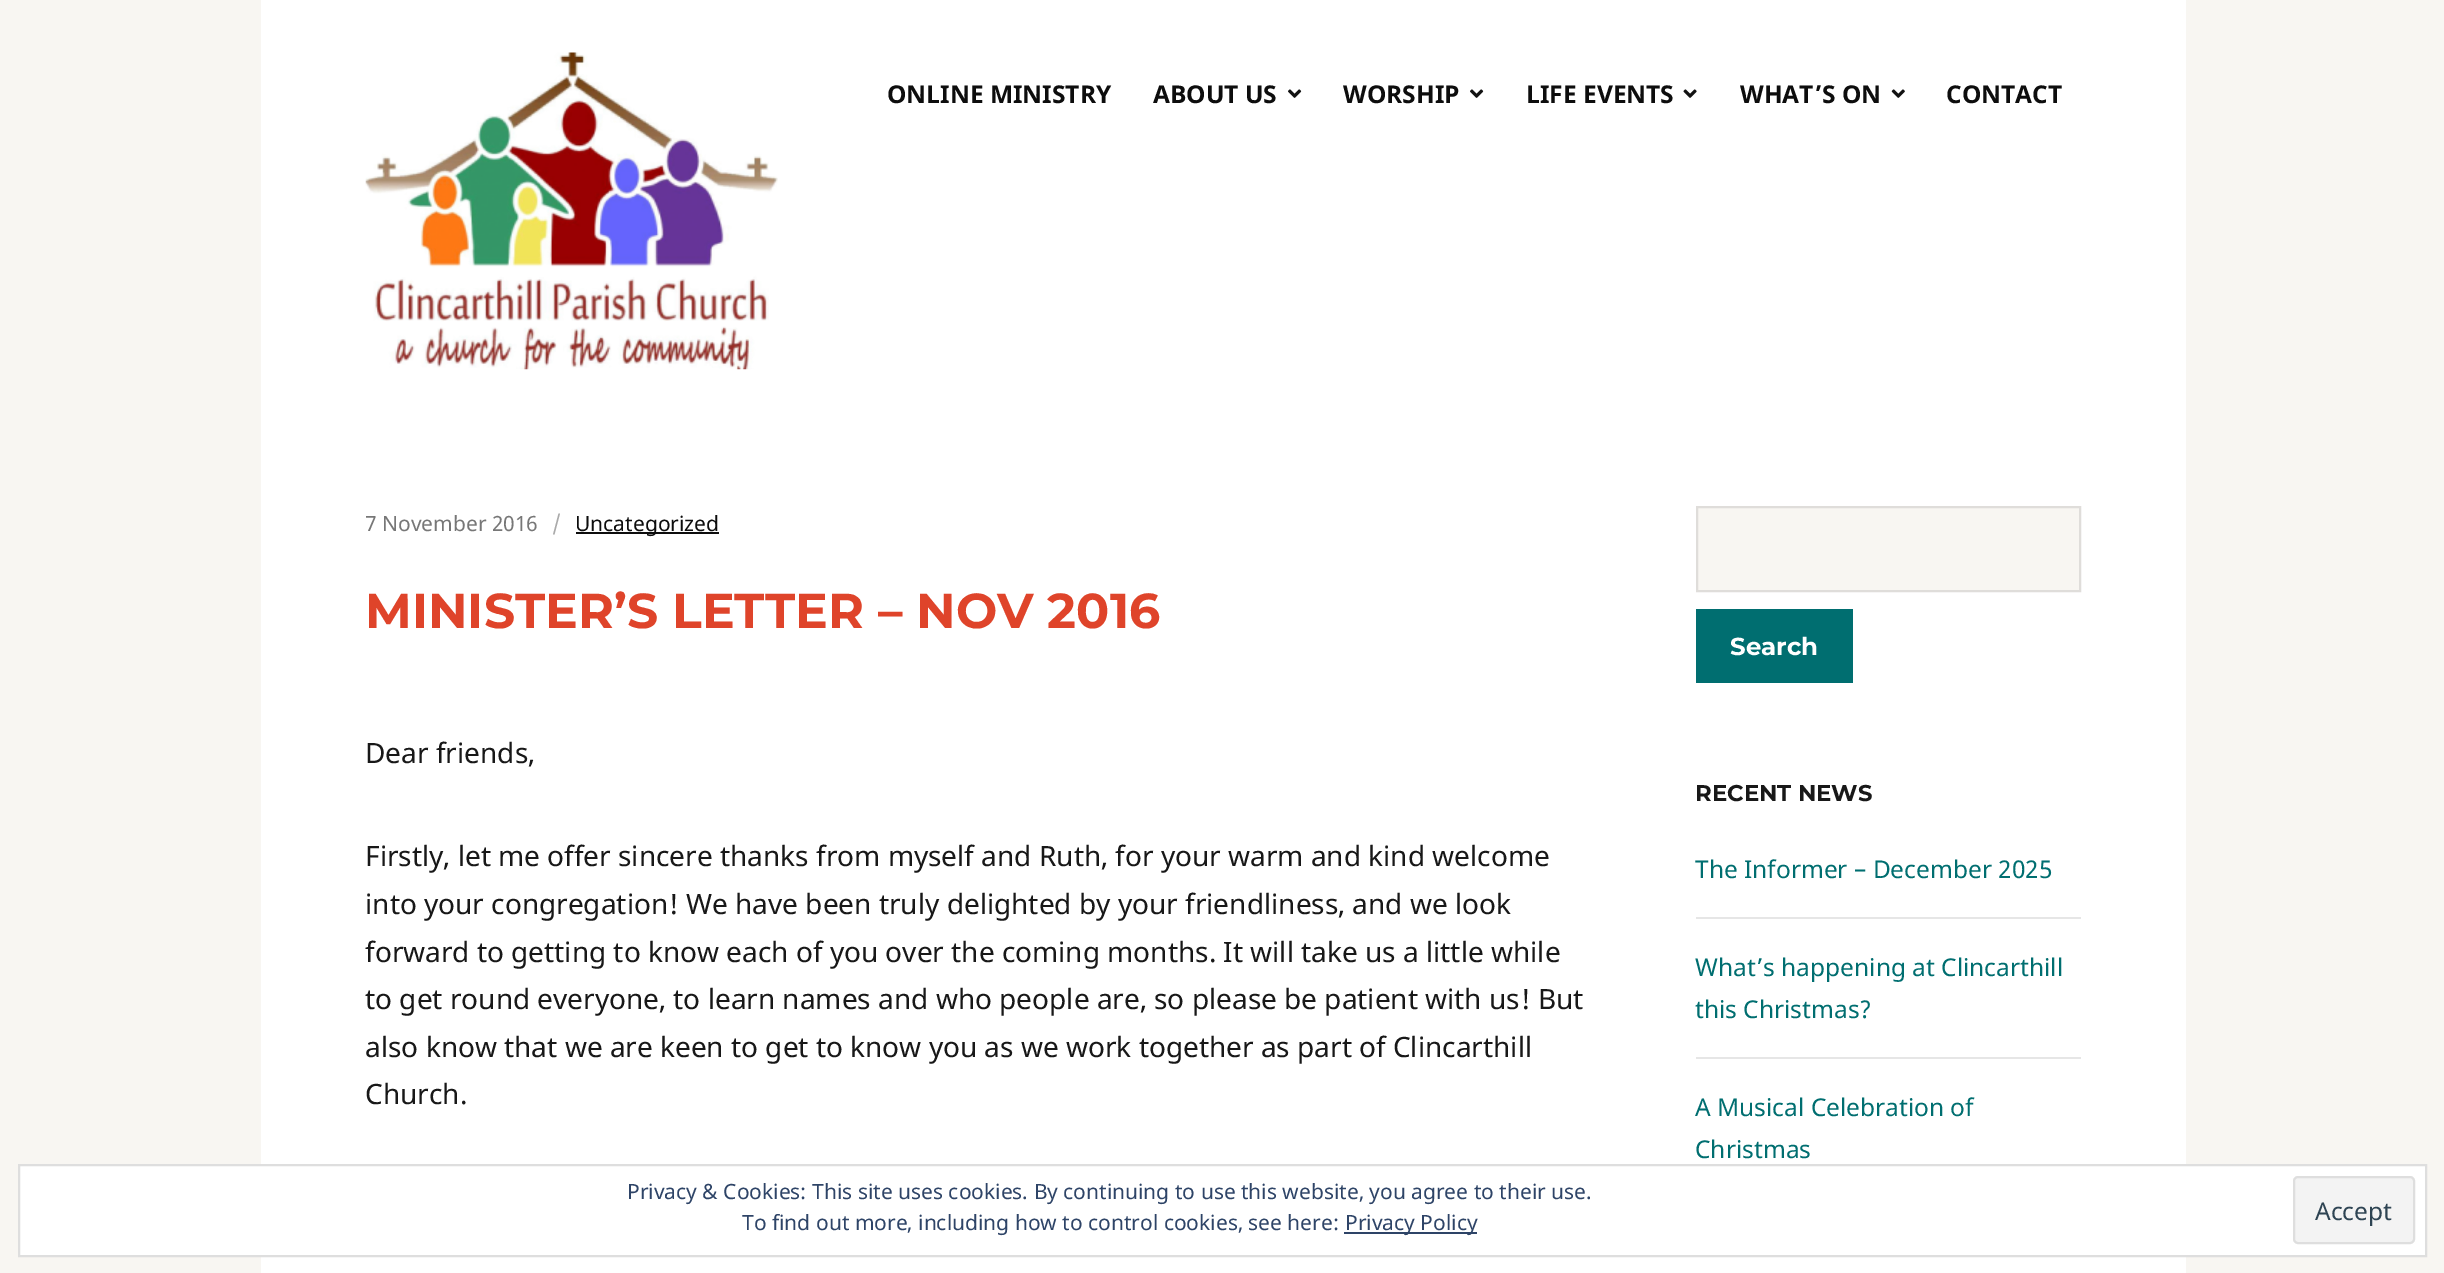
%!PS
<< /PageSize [2444 1273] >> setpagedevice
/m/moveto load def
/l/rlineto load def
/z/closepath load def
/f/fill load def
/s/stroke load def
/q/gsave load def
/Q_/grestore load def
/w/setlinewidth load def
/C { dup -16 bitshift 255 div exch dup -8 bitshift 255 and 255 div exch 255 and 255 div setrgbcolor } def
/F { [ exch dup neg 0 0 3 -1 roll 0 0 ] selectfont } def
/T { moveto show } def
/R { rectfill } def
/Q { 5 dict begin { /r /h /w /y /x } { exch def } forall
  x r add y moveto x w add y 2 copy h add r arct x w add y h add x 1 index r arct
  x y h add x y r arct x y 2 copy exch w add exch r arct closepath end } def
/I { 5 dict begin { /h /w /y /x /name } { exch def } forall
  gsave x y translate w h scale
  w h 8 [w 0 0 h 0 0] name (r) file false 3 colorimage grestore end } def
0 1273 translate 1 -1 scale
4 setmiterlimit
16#F8F6F2 C
0 0 2444 1273 R
16#FFFFFF C
261 0 1925 1273 R
(1.rgb) 365 52 413 318 I
/NotoSans-Bold 24.5 F
16#0D0D0D C
(ONLINE MINISTRY) 887 103 T
(ABOUT US) 1153 103 T
(2.rgb) 1288 89 14 9 I
(WORSHIP) 1343 103 T
(2.rgb) 1470 89 14 9 I
(LIFE EVENTS) 1526 103 T
(3.rgb) 1683 89 14 9 I
(WHAT’S ON) 1740 103 T
(4.rgb) 1891 89 14 9 I
(CONTACT) 1946 103 T
/NotoSans-Regular 21 F
16#777777 C
(7 November 2016) 365 531 T
16#AAAAAA C
(/) 552 531 T
16#0D0D0D C
576 532 143 2 R
(Uncategorized) 575 531 T
/Montserrat-Thin 49 F
16#DF442A C
(MINISTER’S LETTER – NOV 2016) 365 628 T
/NotoSans-Regular 28 F
16#181818 C
(Dear friends,) 365 763 T
(Firstly, let me offer sincere thanks from myself and Ruth, for your warm and kind welcome) 365 866 T
(into your congregation! We have been truly delighted by your friendliness, and we look) 365 914 T
(forward to getting to know each of you over the coming months. It will take us a little while) 365 962 T
(to get round everyone, to learn names and who people are, so please be patient with us! But) 365 1009 T
(also know that we are keen to get to know you as we work together as part of Clincarthill) 365 1057 T
(Church.) 365 1104 T
16#F8F6F2 C
1697 507 m 383 0 l 0 84 l -383 0 l z q f Q_
16#DFDDDA C
2 w
s
16#006E70 C
1696 609 157 74 R
/Montserrat-Thin 24.5 F
16#FFFFFF C
(Search) 1730 655 T
/Montserrat-Thin 22.75 F
16#181818 C
(RECENT NEWS) 1695 801 T
16#E6E6E6 C
1696 917 385 2 R
/NotoSans-Regular 24.5 F
16#006E70 C
(The Informer – December 2025) 1695 878 T
16#E6E6E6 C
1696 1057 385 2 R
16#006E70 C
(What’s happening at Clincarthill) 1695 976 T
(this Christmas?) 1695 1018 T
(A Musical Celebration of) 1695 1116 T
(Christmas) 1695 1158 T
16#FFFFFF C
19 1165 m 2407 0 l 0 91 l -2407 0 l z q f Q_
16#DEDEDE C
s
/NotoSans-Regular 21 F
16#2E4467 C
(Privacy & Cookies: This site uses cookies. By continuing to use this website, you agree to their use.) 627 1199 T
(To find out more, including how to control cookies, see here:) 742 1230 T
1344 1232 133 2 R
(Privacy Policy) 1345 1230 T
16#F3F3F3 C
2294 1177 120 66 4 Q q f Q_
16#DEDEDE C
s
/NotoSans-Regular 24.5 F
16#2E4453 C
(Accept) 2315 1220 T
showpage
